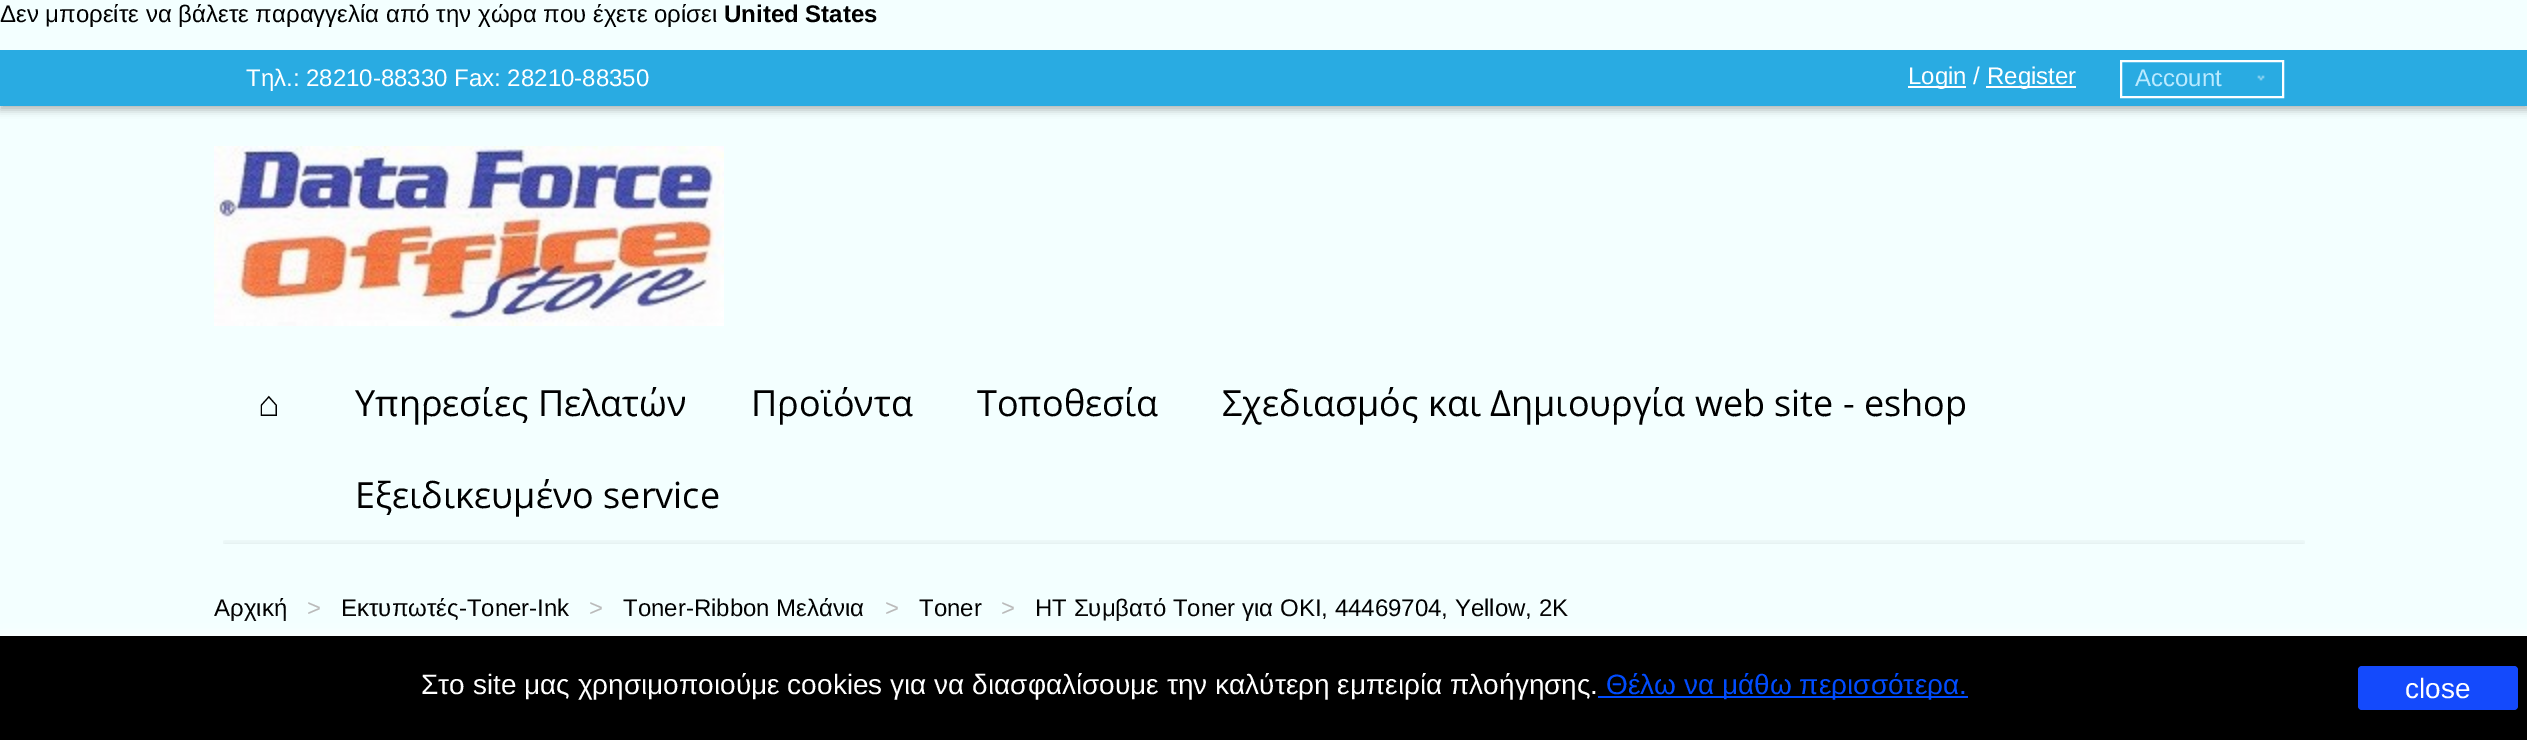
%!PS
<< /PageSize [2527 740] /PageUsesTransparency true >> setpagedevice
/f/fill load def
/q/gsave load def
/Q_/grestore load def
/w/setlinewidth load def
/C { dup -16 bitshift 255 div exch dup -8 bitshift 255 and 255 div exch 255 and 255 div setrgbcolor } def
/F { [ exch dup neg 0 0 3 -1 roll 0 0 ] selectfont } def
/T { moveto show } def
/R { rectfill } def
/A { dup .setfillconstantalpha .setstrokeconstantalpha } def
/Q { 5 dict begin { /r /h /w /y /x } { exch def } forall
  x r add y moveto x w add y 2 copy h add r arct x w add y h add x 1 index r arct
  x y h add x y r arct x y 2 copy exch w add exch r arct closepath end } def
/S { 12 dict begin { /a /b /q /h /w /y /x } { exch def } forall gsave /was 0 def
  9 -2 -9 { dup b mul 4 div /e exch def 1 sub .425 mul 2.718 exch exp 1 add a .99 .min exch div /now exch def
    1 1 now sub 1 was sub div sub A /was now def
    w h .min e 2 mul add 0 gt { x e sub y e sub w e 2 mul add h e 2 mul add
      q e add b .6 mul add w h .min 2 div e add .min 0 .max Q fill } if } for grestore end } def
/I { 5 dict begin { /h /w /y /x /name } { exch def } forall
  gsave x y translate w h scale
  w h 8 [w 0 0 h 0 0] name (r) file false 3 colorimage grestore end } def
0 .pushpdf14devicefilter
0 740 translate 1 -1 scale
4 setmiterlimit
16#F3FFFF C
0 0 2527 740 R
/LiberationSans-Regular 24 F
16#000000 C
(Δεν μπορείτε να βάλετε παραγγελία από την χώρα που έχετε ορίσει) 0 22 T
/LiberationSans-Bold 24 F
(United States) 724 22 T
q
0 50 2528 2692 rectclip
0 54 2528 56 0 4 .27 S
Q_
16#29ABE2 C
0 50 2527 56 R
/LiberationSans-Regular 24 F
16#FFFFFF C
(Τηλ.: 28210-88330 Fax: 28210-88350) 246 86 T
1908 86 58 2 R
(Login /) 1908 84 T
1986 86 90 2 R
(Register) 1987 84 T
(1.rgb) 2257 75 8 6 I
2 w
2121 61 162 36 rectstroke
16#BAEAFF C
(Account) 2135 86 T
(2.rgb) 214 146 510 180 I
/LiberationSerif-Regular 36 F
16#000000 C
(⌂) 258 416 T
/OpenSans-Regular 36 F
(Υπηρεσίες Πελατών) 355 416 T
(Προϊόντα) 751 416 T
(Τοποθεσία) 977 416 T
(Σχεδιασμός και Δημιουργία web site - eshop) 1222 416 T
(Εξειδικευμένο service) 355 508 T
q
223 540 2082 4 rectclip
224 544 2080 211 0 5 .1 S
Q_
/LiberationSans-Regular 24 F
(Αρχική) 214 616 T
16#BABABA C
(>) 307 616 T
16#000000 C
(Εκτυπωτές-Toner-Ink) 341 616 T
16#BABABA C
(>) 589 616 T
16#000000 C
(Toner-Ribbon Μελάνια) 623 616 T
16#BABABA C
(>) 885 616 T
16#000000 C
(Toner) 919 616 T
16#BABABA C
(>) 1001 616 T
16#000000 C
(HT Συμβατό Toner για OKI, 44469704, Yellow, 2K) 1035 616 T
16#FFFFFF C
0 636 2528 104 0 10 1 S
16#000000 C
0 636 2527 104 R
/LiberationSans-Regular 28 F
16#FFFFFF C
(Στο site μας χρησιμοποιούμε cookies για να διασφαλίσουμε την καλύτερη εμπειρία πλοήγησης.) 421 694 T
16#004CFF C
1598 696 370 2 R
(Θέλω να μάθω περισσότερα.) 1606 694 T
16#144AFC C
2358 666 160 44 4 Q f
16#FFFFFF C
(close) 2405 698 T
.poppdf14devicefilter showpage
